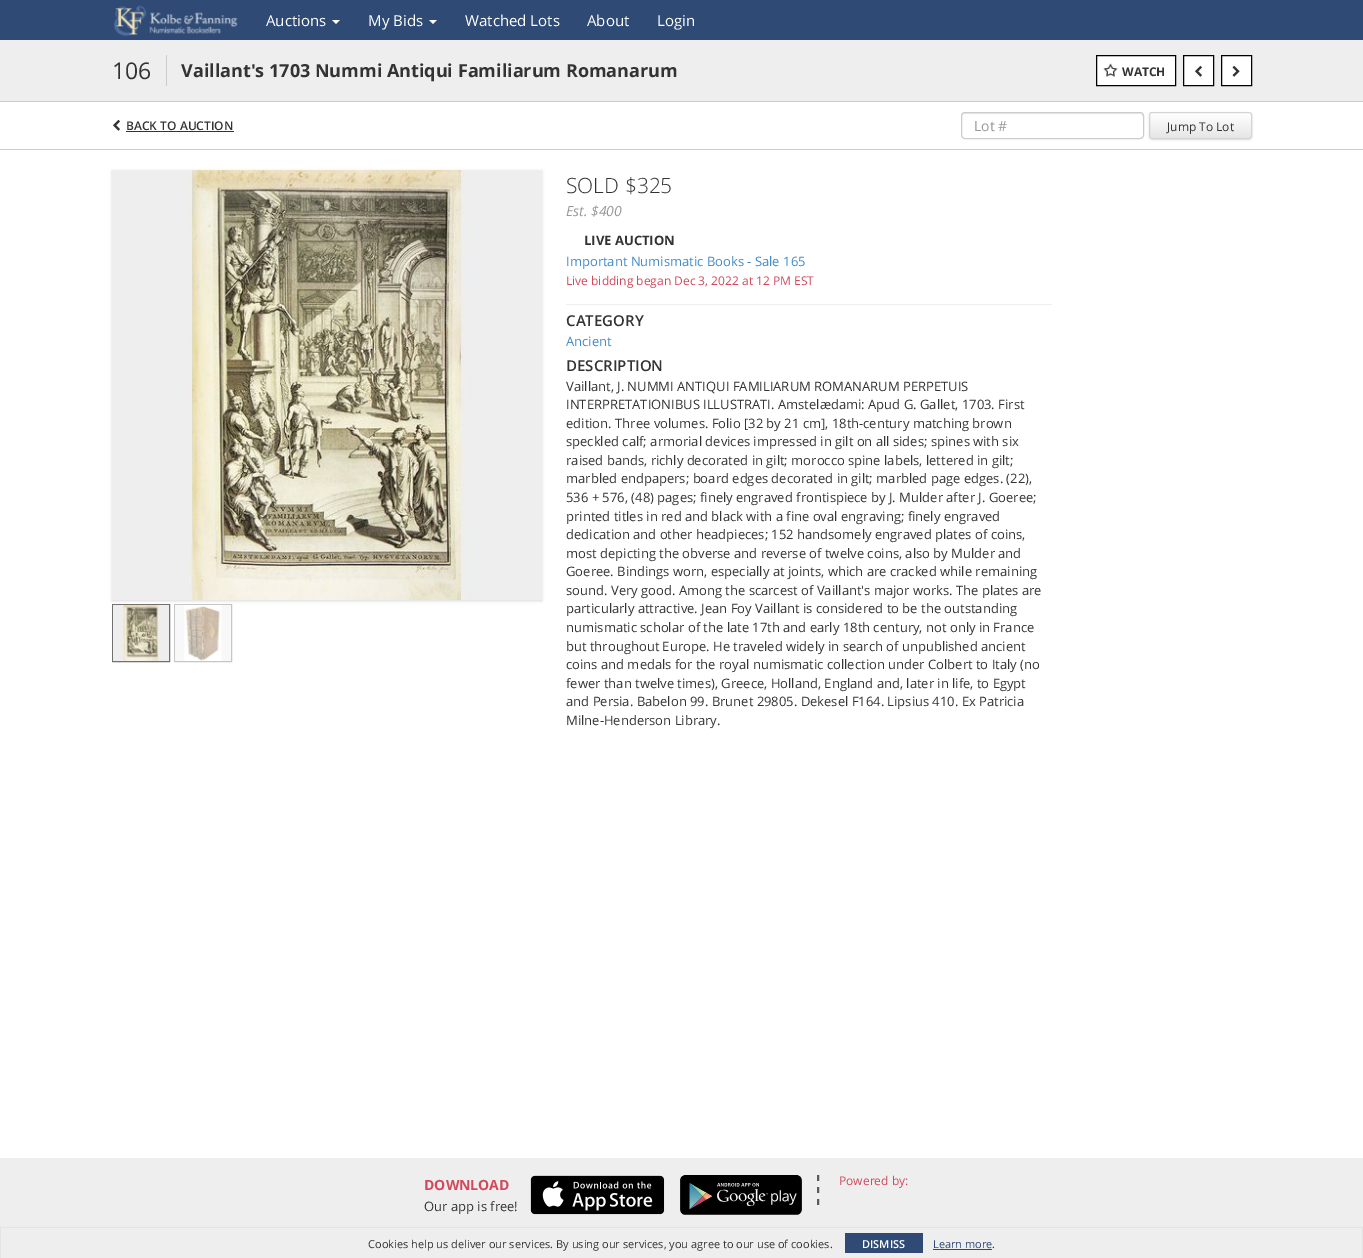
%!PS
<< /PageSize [1363 1258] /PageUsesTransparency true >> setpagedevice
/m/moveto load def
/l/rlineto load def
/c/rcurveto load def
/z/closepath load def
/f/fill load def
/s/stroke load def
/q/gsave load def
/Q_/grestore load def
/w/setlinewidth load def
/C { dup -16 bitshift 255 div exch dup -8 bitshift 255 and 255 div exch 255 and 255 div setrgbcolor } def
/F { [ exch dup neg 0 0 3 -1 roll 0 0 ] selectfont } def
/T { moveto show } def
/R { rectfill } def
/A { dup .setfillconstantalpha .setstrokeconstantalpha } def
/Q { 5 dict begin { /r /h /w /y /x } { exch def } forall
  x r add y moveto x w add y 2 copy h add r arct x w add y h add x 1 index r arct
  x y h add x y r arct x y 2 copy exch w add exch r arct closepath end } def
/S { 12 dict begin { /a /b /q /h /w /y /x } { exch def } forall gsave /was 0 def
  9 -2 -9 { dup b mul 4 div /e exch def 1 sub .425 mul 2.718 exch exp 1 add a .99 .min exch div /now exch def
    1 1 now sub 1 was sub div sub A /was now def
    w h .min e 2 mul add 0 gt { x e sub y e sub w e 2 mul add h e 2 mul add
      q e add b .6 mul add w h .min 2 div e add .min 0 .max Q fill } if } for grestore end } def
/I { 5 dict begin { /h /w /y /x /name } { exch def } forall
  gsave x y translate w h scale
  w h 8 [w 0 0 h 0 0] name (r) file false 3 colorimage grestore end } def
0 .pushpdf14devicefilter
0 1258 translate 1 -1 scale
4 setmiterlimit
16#FFFFFF C
0 0 1363 1258 R
16#2E4A75 C
0 0 1363 40 R
(1.rgb) 113 5 125 32 I
/OpenSans-Regular 15 F
16#FFFFFF C
(Auctions) 266 26 T
332 20 m 8 0 l -4 4 l z f
(My Bids) 368 26 T
429 20 m 8 0 l -4 4 l z f
(Watched Lots) 465 26 T
(About) 587 26 T
(Login) 657 26 T
16#EEEEEE C
0 40 1363 61 R
16#CCCCCC C
0 101 1363 1 R
/OpenSans-Regular 23 F
16#333333 C
(106) 112 79 T
16#CCCCCC C
166 55 1 31 R
/OpenSans-Bold 18 F
16#333333 C
(Vaillant's 1703 Nummi Antiqui Familiarum Romanarum) 181 77 T
16#FFFFFF C
1096.5 55.5 m 79 0 l 0 30 l -79 0 l z q f Q_
16#000000 C
s
(2.rgb) 1103 63 15 14 I
/OpenSans-Bold 12 F
16#333333 C
(WATCH) 1122 76 T
16#FFFFFF C
1183.5 55.5 m 30 0 l 0 30 l -30 0 l z q f Q_
16#000000 C
s
(3.rgb) 1195 65 7 12 I
16#FFFFFF C
1221.5 55.5 m 30 0 l 0 30 l -30 0 l z q f Q_
16#000000 C
s
(4.rgb) 1232 65 8 12 I
(3.rgb) 113 119 7 12 I
/OpenSans-SemiBold 12 F
16#333333 C
(BACK TO AUCTION) 126 130 T
126 131 108 1 R
16#ECECEC C
965 114 m 176 0 l 1 1 l 1 2 l 0 -1 l 0 -2 -1 -3 -3 -3 c -175 0 l -2 0 -3 1 -3 3 c 0 1 l 0 -2 1 -3 3 -3 c z f
16#CCCCCC C
961.5 112.5 182 26 3.5 Q s
/OpenSans-Regular 14 F
16#999999 C
(Lot #) 974 131 T
16#000000 C
1150 114 101 25 2 1.5 .2 S
q
1149 112 103 27 3 Q clip newpath
q 1149 113 m 103 0 l 0 25 l -103 0 l z clip newpath
<< /ShadingType 2 /ColorSpace /DeviceRGB /Coords [1201 113 1201 138] /Extend [true true] /Function << /FunctionType 2 /Domain [0 1] /C0 [1 1 1] /C1 [.902 .902 .902] /N 1 >> >> shfill Q_
Q_
0.4 A
16#FFFFFF C
1152 114 m 97 0 l 1 0 2 1 2 2 c 0 -1 0 -3 -2 -3 c -81 0 l -1 0 -18 -5 -18 3 c 0 -1 1 -2 2 -2 c z f
1 A
16#D4D4D4 C
1149.5 112.5 102 26 2.5 Q s
/OpenSans-Regular 12 F
16#333333 C
(Jump To Lot) 1167 131 T
16#CCCCCC C
0 149 1363 1 R
16#DAD9D7 C
112 171 430 430 0 1.5 1 S
(5.rgb) 112 170 430 430 I
16#717171 C
112.5 604.5 57 57 rectstroke
16#C6C6C6 C
174.5 604.5 57 57 rectstroke
(6.rgb) 113 605 56 56 I
(7.rgb) 175 605 56 56 I
/OpenSans-Light 21 F
16#333333 C
(SOLD $325) 566 193 T
/OpenSans-Italic 14 F
16#999999 C
(Est. $400) 566 216 T
/OpenSans-Bold 13 F
16#333333 C
(LIVE AUCTION) 584 245 T
/OpenSans-Regular 13 F
16#428BCA C
(Important Numismatic Books - Sale 165) 566 266 T
/OpenSans-Regular 12 F
16#D1495B C
(Live bidding began Dec 3, 2022 at 12 PM EST) 566 285 T
16#EEEEEE C
566 304 486 1 R
/OpenSans-SemiBold 15 F
16#333333 C
(CATEGORY) 566 326 T
/OpenSans-Regular 13 F
16#428BCA C
(Ancient) 566 346 T
/OpenSans-SemiBold 15 F
16#333333 C
(DESCRIPTION) 566 371 T
/OpenSans-Regular 13 F
(Vaillant, J. NUMMI ANTIQUI FAMILIARUM ROMANARUM PERPETUIS) 566 391 T
(INTERPRETATIONIBUS ILLUSTRATI. Amstelædami: Apud G. Gallet, 1703. First) 566 409 T
(edition. Three volumes. Folio [32 by 21 cm], 18th-century matching brown) 566 428 T
(speckled calf; armorial devices impressed in gilt on all sides; spines with six) 566 446 T
(raised bands, richly decorated in gilt; morocco spine labels, lettered in gilt;) 566 465 T
(marbled endpapers; board edges decorated in gilt; marbled page edges. \(22\),) 566 483 T
(536 + 576, \(48\) pages; finely engraved frontispiece by J. Mulder after J. Goeree;) 566 502 T
(printed titles in red and black with a fine oval engraving; finely engraved) 566 521 T
(dedication and other headpieces; 152 handsomely engraved plates of coins,) 566 539 T
(most depicting the obverse and reverse of twelve coins, also by Mulder and) 566 558 T
(Goeree. Bindings worn, especially at joints, which are cracked while remaining) 566 576 T
(sound. Very good. Among the scarcest of Vaillant's major works. The plates are) 566 595 T
(particularly attractive. Jean Foy Vaillant is considered to be the outstanding) 566 613 T
(numismatic scholar of the late 17th and early 18th century, not only in France) 566 632 T
(but throughout Europe. He traveled widely in search of unpublished ancient) 566 651 T
(coins and medals for the royal numismatic collection under Colbert to Italy \(no) 566 669 T
(fewer than twelve times\), Greece, Holland, England and, later in life, to Egypt) 566 688 T
(and Persia. Babelon 99. Brunet 29805. Dekesel F164. Lipsius 410. Ex Patricia) 566 706 T
(Milne-Henderson Library.) 566 725 T
16#EEEEEE C
0 1158 1363 69 R
/OpenSans-Bold 14 F
16#D1495B C
(DOWNLOAD) 424 1190 T
/OpenSans-Regular 13 F
16#333333 C
(Our app is free!) 424 1211 T
(8.rgb) 530 1175 135 40 I
(9.rgb) 680 1175 122 40 I
16#595959 C
2 w
818 1175 m 0 6 l 818 1187 m 0 6 l 818 1199 m 0 6 l s
/OpenSans-Regular 12 F
16#D1495B C
(Powered by:) 839 1185 T
16#EEEEEE C
1 1228 1361 30 R
16#E4E4E4 C
0 1227 1363 1 R
1362 1227 1 31 R
0 1227 1 31 R
/OpenSans-Regular 11 F
16#333333 C
(Cookies help us deliver our services. By using our services, you agree to our use of cookies.) 368 1248 T
16#2E4A75 C
845 1233 78 20 R
/OpenSans-SemiBold 11 F
16#FFFFFF C
(DISMISS) 862 1248 T
/OpenSans-Regular 11 F
16#2E4A75 C
(Learn more) 933 1248 T
933 1249 59 1 R
16#333333 C
(.) 992 1248 T
.poppdf14devicefilter showpage
